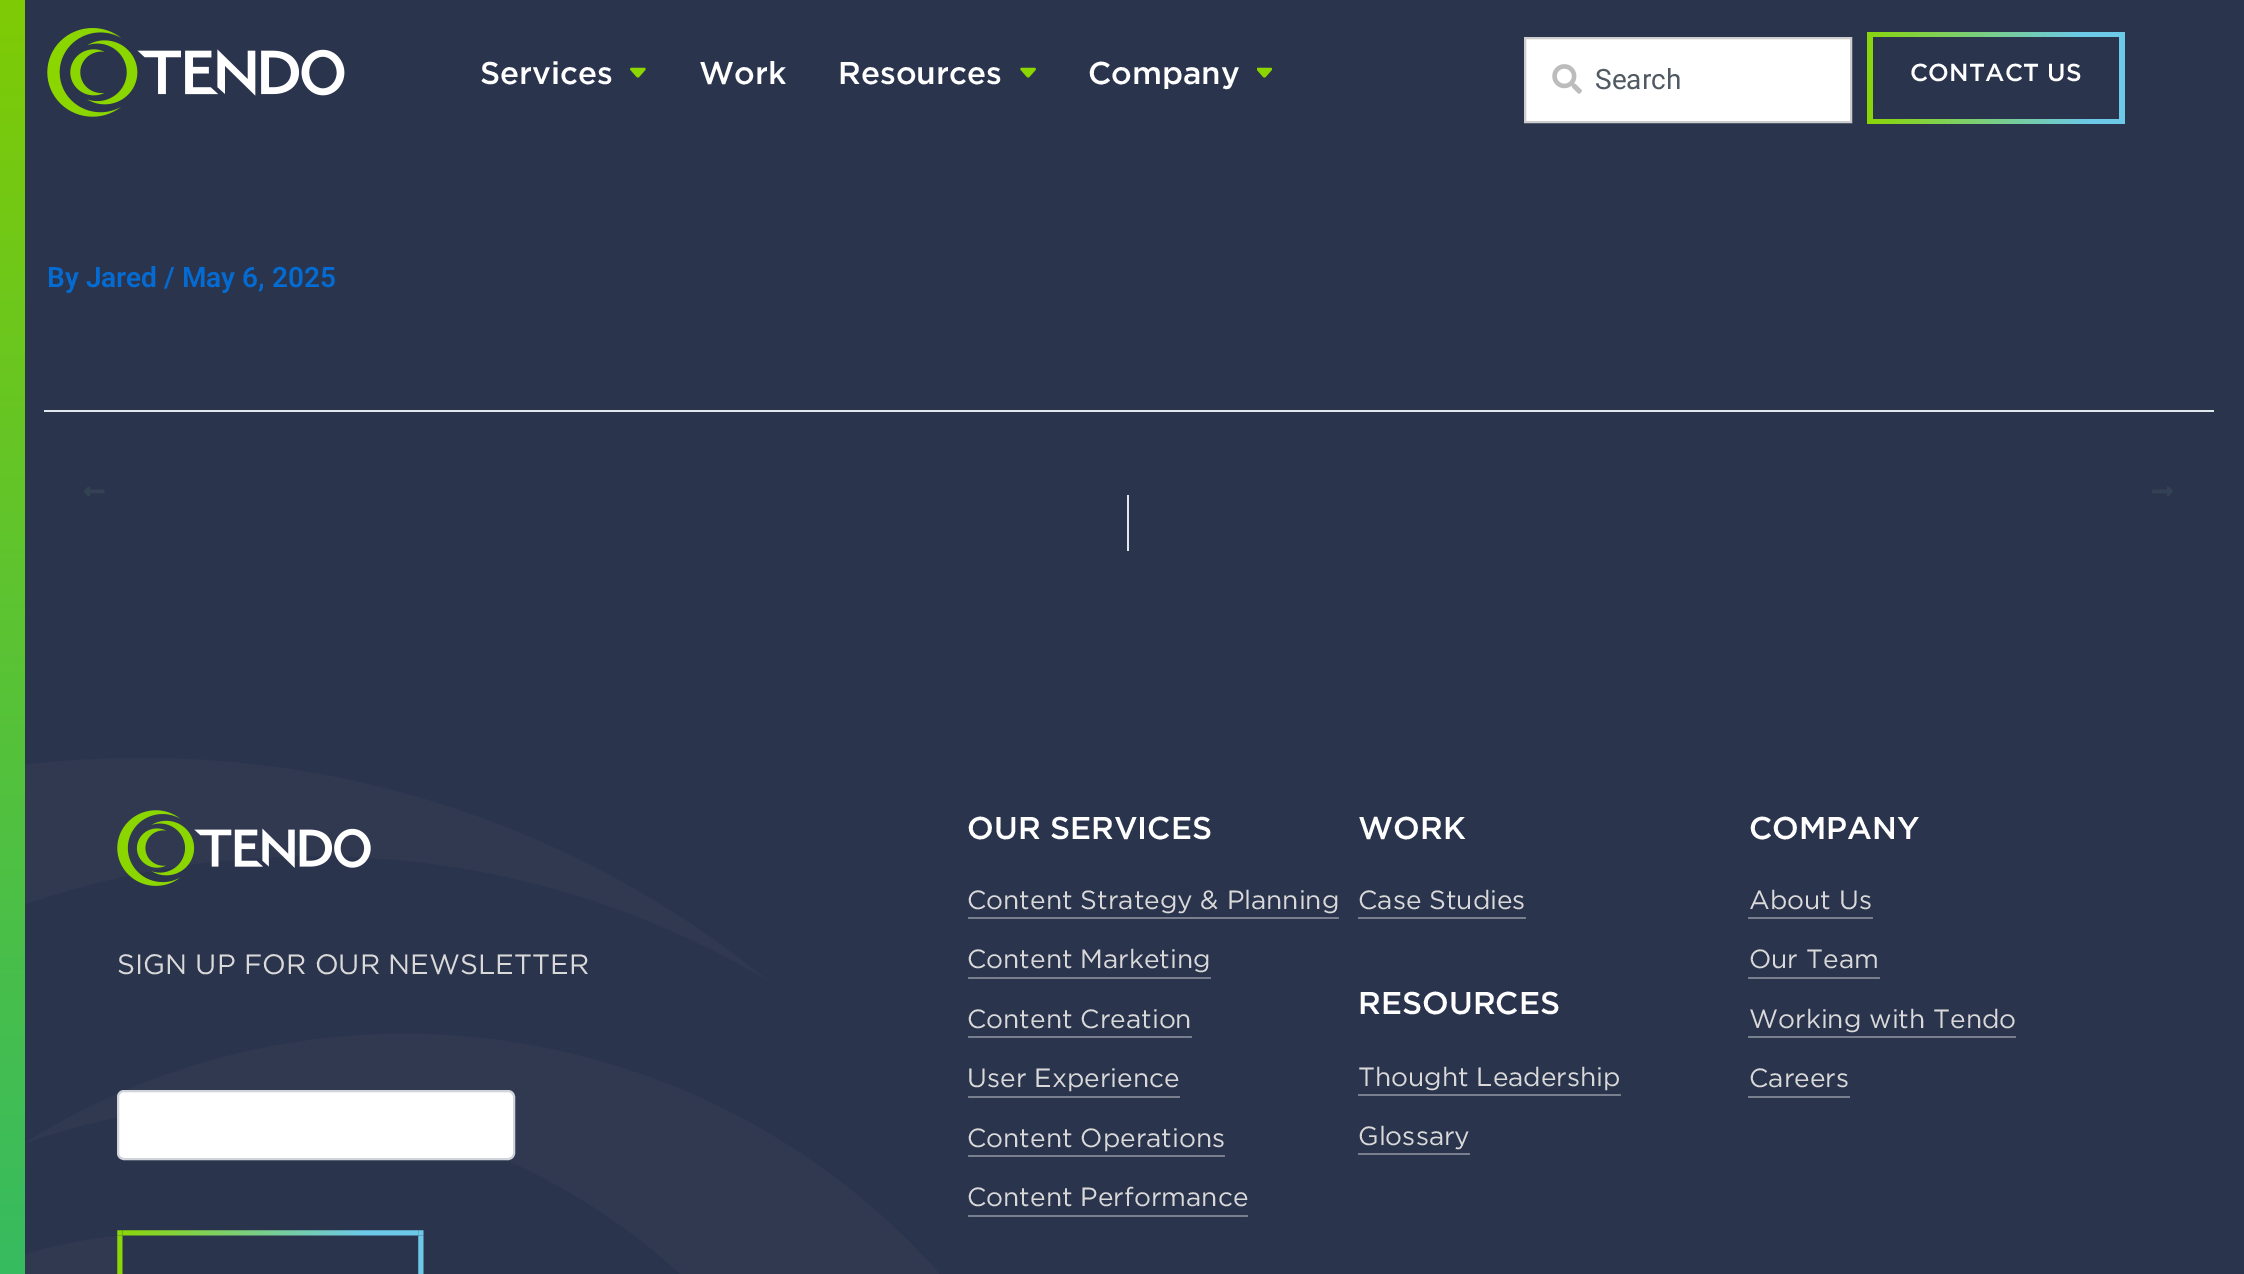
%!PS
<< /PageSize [2244 1274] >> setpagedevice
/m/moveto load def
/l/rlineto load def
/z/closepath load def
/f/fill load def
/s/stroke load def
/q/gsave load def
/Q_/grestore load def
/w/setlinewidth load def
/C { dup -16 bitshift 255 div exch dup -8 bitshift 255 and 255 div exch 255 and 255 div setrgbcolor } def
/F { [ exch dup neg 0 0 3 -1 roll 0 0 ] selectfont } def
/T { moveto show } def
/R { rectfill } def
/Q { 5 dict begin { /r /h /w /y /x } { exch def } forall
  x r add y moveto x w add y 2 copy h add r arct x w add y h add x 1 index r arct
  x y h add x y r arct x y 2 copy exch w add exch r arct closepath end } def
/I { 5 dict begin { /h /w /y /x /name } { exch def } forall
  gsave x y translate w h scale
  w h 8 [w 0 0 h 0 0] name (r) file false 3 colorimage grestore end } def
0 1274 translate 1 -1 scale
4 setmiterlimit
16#2B344D C
0 0 2244 1274 R
q 0 0 m 25 0 l 0 1274 l -25 0 l z clip newpath
<< /ShadingType 2 /ColorSpace /DeviceRGB /Coords [12 0 12 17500] /Extend [true true] /Function << /FunctionType 3 /Domain [0 1] /Functions [<< /FunctionType 2 /Domain [0 1] /C0 [.498 .796 .02] /C1 [.071 .702 .561] /N 1 >> << /FunctionType 2 /Domain [0 1] /C0 [.071 .702 .561] /C1 [.055 .71 .816] /N 1 >> << /FunctionType 2 /Domain [0 1] /C0 [.055 .71 .816] /C1 [.29 .392 .757] /N 1 >> << /FunctionType 2 /Domain [0 1] /C0 [.29 .392 .757] /C1 [.369 .169 .788] /N 1 >> << /FunctionType 2 /Domain [0 1] /C0 [.369 .169 .788] /C1 [.055 .71 .816] /N 1 >> << /FunctionType 2 /Domain [0 1] /C0 [.055 .71 .816] /C1 [.498 .796 .02] /N 1 >> << /FunctionType 2 /Domain [0 1] /C0 [.498 .796 .02] /C1 [.071 .702 .561] /N 1 >> << /FunctionType 2 /Domain [0 1] /C0 [.071 .702 .561] /C1 [.055 .71 .816] /N 1 >> << /FunctionType 2 /Domain [0 1] /C0 [.055 .71 .816] /C1 [.349 .282 .757] /N 1 >> << /FunctionType 2 /Domain [0 1] /C0 [.349 .282 .757] /C1 [.055 .71 .816] /N 1 >> << /FunctionType 2 /Domain [0 1] /C0 [.055 .71 .816] /C1 [.055 .71 .816] /N 1 >>] /Bounds [.11 .19 .31 .41 .49 .6 .69 .79 .88 .96] /Encode [0 1 0 1 0 1 0 1 0 1 0 1 0 1 0 1 0 1 0 1 0 1] >> >> shfill Q_
(1.rgb) 47 28 298 89 I
/Gotham-Medium 31.5 F
16#FFFFFF C
(Services) 480 84 T
(2.rgb) 630 67 16 11 I
(Work) 699 84 T
(Resources) 838 84 T
(3.rgb) 1020 67 16 11 I
(Company) 1088 84 T
(4.rgb) 1257 67 15 11 I
1525 38 m 326 0 l 0 84 l -326 0 l z q f Q_
16#CDCDCD C
2 w
s
(5.rgb) 1552 64 30 30 I
/Roboto-Regular 28 F
16#515962 C
(Search) 1595 89 T
q 1867 32 m 258 0 l 0 92 l -258 0 l z clip newpath
<< /ShadingType 2 /ColorSpace /DeviceRGB /Coords [2132 65 1860 91] /Extend [true true] /Function << /FunctionType 3 /Domain [0 1] /Functions [<< /FunctionType 2 /Domain [0 1] /C0 [.424 .788 .91] /C1 [.424 .788 .91] /N 1 >> << /FunctionType 2 /Domain [0 1] /C0 [.424 .788 .91] /C1 [.549 .839 0] /N 1 >>] /Bounds [.18] /Encode [0 1 0 1] >> >> shfill Q_
16#2B344D C
1873 37 246 82 R
/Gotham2-Medium 24.5 F
16#FFFFFF C
1910 81 m .25 0 (CONTACT US) ashow
/Roboto-SemiBold 28 F
16#046BD2 C
(By Jared / May 6, 2025) 47 287 T
16#E1E8ED C
44 410 2170 2 R
(6.rgb) 84 486 21 11 I
1127 495 2 56 R
(7.rgb) 2152 486 21 11 I
(8.rgb) 25 758 914 516 I
(9.rgb) 117 810 254 76 I
/Gotham-Regular 28 F
16#D9D9D9 C
(SIGN UP FOR OUR NEWSLETTER) 117 974 T
16#FFFFFF C
118 1091 396 68 6 Q q f Q_
16#D1D5DB C
s
16#2B344D C
117 1230 307 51 7 Q f
(10.rgb) 117 1230 307 44 I
/Gotham-Medium 31.5 F
16#FFFFFF C
(OUR SERVICES) 967 839 T
/Gotham2-Regular 26.25 F
16#D9D9D9 C
(Content Strategy & Planning) 967 909 T
16#797F8F C
968 917 371 2 1 Q f
16#D9D9D9 C
(Content Marketing) 967 968 T
16#797F8F C
968 977 243 2 1 Q f
16#D9D9D9 C
(Content Creation) 967 1028 T
16#797F8F C
968 1036 224 2 1 Q f
16#D9D9D9 C
(User Experience) 967 1087 T
16#797F8F C
968 1096 212 2 1 Q f
16#D9D9D9 C
(Content Operations) 967 1147 T
16#797F8F C
968 1155 257 2 1 Q f
16#D9D9D9 C
(Content Performance) 967 1206 T
16#797F8F C
968 1215 280 2 1 Q f
/Gotham-Medium 31.5 F
16#FFFFFF C
(WORK) 1358 839 T
/Gotham2-Regular 26.25 F
16#D9D9D9 C
(Case Studies) 1358 909 T
16#797F8F C
1358 917 168 2 1 Q f
/Gotham-Medium 31.5 F
16#FFFFFF C
(RESOURCES) 1358 1014 T
/Gotham2-Regular 26.25 F
16#D9D9D9 C
(Thought Leadership) 1358 1086 T
16#797F8F C
1358 1094 263 2 1 Q f
16#D9D9D9 C
(Glossary) 1358 1145 T
16#797F8F C
1358 1153 112 2 1 Q f
/Gotham-Medium 31.5 F
16#FFFFFF C
(COMPANY) 1749 839 T
/Gotham2-Regular 26.25 F
16#D9D9D9 C
(About Us) 1749 909 T
16#797F8F C
1748 917 125 2 1 Q f
16#D9D9D9 C
(Our Team) 1749 968 T
16#797F8F C
1748 977 132 2 1 Q f
16#D9D9D9 C
(Working with Tendo) 1749 1028 T
16#797F8F C
1748 1036 268 2 1 Q f
16#D9D9D9 C
(Careers) 1749 1087 T
16#797F8F C
1748 1096 102 2 1 Q f
showpage
